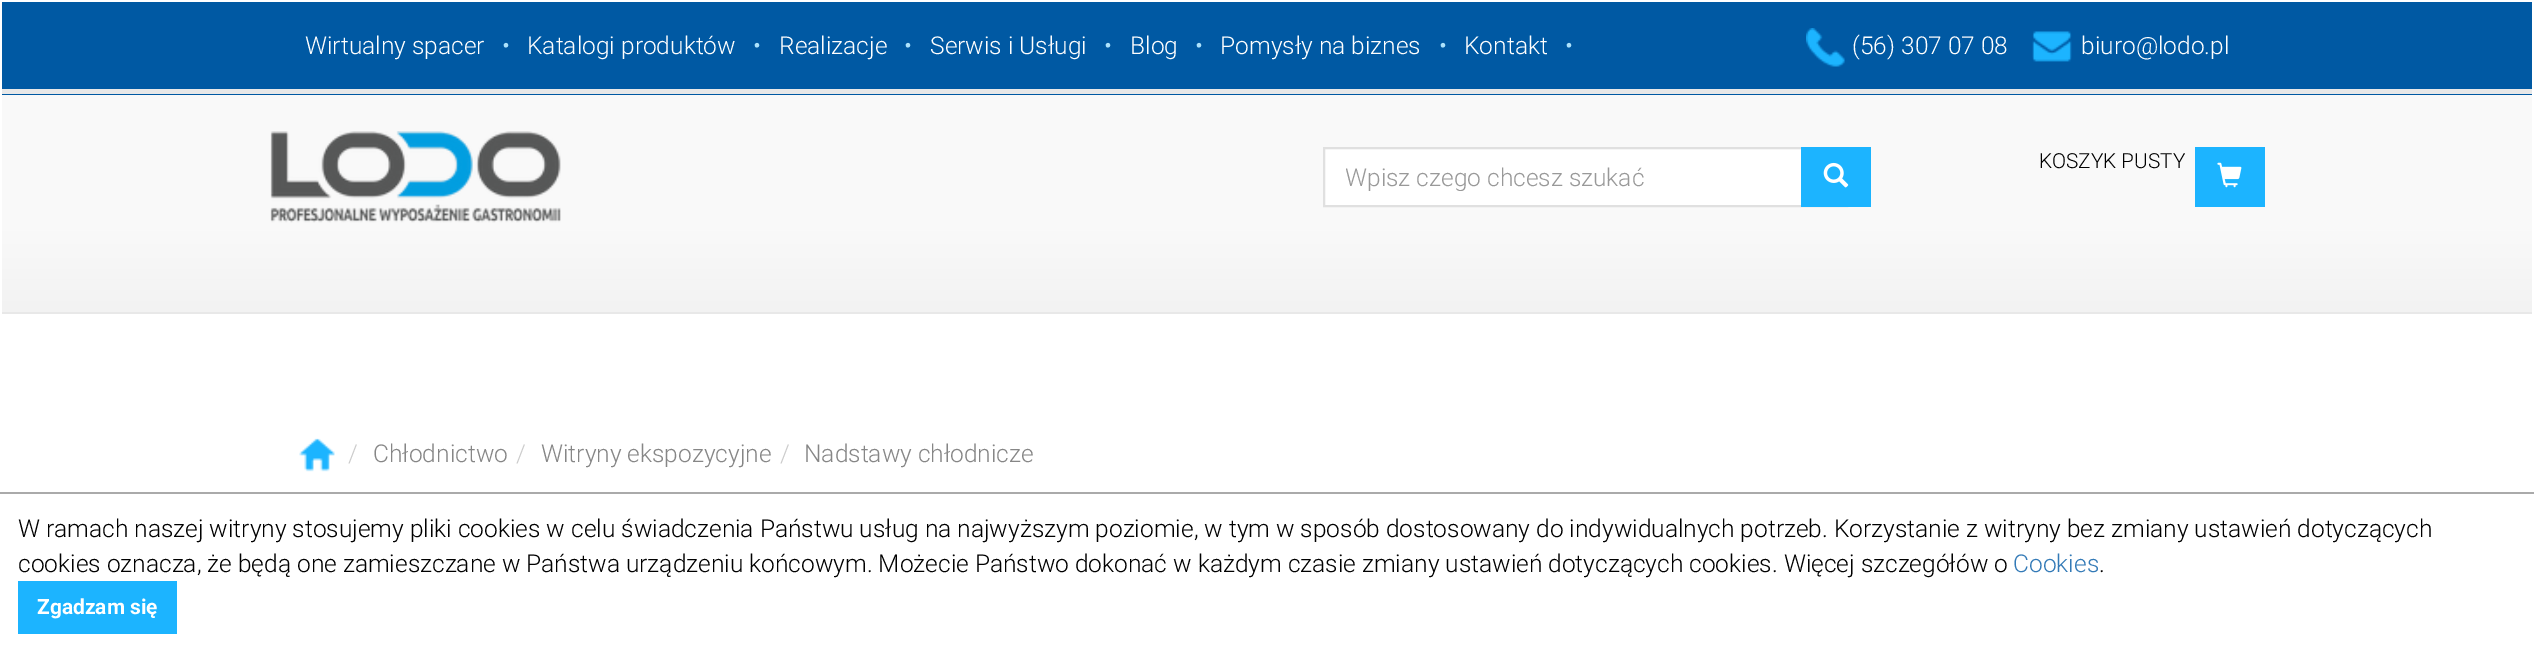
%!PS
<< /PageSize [2534 668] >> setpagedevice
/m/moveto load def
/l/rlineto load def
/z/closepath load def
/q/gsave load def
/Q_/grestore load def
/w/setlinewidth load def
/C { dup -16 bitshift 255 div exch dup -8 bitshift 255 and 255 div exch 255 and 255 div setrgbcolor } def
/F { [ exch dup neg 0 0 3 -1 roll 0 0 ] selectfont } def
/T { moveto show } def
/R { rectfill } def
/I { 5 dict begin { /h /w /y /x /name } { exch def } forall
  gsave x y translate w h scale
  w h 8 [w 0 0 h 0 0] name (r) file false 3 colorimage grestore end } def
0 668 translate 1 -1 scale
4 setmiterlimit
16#FFFFFF C
0 0 2534 668 R
16#0059A3 C
2 2 2530 93 R
16#E8E8E8 C
2 89 2530 5 R
/Roboto-Light 24.5 F
16#FFFFFF C
(Wirtualny spacer) 305 54 T
16#ACE2FC C
(•) 502 54 T
16#FFFFFF C
(Katalogi produktów) 527 54 T
16#ACE2FC C
(•) 753 54 T
16#FFFFFF C
(Realizacje) 779 54 T
16#ACE2FC C
(•) 904 54 T
16#FFFFFF C
(Serwis i Usługi) 930 54 T
16#ACE2FC C
(•) 1104 54 T
16#FFFFFF C
(Blog) 1130 54 T
16#ACE2FC C
(•) 1195 54 T
16#FFFFFF C
(Pomysły na biznes) 1220 54 T
16#ACE2FC C
(•) 1439 54 T
16#FFFFFF C
(Kontakt) 1464 54 T
16#ACE2FC C
(•) 1565 54 T
(1.rgb) 1806 28 39 39 I
16#FFFFFF C
(\(56\) 307 07 08) 1852 54 T
(2.rgb) 2032 31 40 31 I
(biuro@lodo.pl) 2081 54 T
q 2 95 m 2530 0 l 0 217 l -2530 0 l z clip newpath
<< /ShadingType 2 /ColorSpace /DeviceRGB /Coords [1267 94 1267 312] /Extend [true true] /Function << /FunctionType 3 /Domain [0 1] /Functions [<< /FunctionType 2 /Domain [0 1] /C0 [.976 .976 .976] /C1 [.976 .976 .976] /N 1 >> << /FunctionType 2 /Domain [0 1] /C0 [.976 .976 .976] /C1 [.949 .949 .949] /N 1 >>] /Bounds [.62] /Encode [0 1 0 1] >> >> shfill Q_
16#E8E8E8 C
2 312 2530 2 R
(3.rgb) 270 131 291 92 I
/Roboto-Light 20.75 F
16#000000 C
(KOSZYK PUSTY) 2039 168 T
16#1CB4FF C
2195 147 70 60 R
(4.rgb) 2217 162 25 26 I
16#FFFFFF C
1325 149 476 56 R
16#E0E0E0 C
2 w
1324 148 523 58 rectstroke
q
1346 163 479 28 rectclip
/Roboto-Light 24.5 F
16#999999 C
(Wpisz czego chcesz szukać) 1345 186 T
Q_
16#1CB4FF C
1801 147 70 60 R
(5.rgb) 1823 162 26 26 I
(6.rgb) 299 438 36 34 I
/Roboto-Light 24.5 F
16#CCCCCC C
(/) 348 462 T
16#868686 C
(Chłodnictwo) 373 462 T
16#CCCCCC C
(/) 516 462 T
16#868686 C
(Witryny ekspozycyjne) 541 462 T
16#CCCCCC C
(/) 780 462 T
16#868686 C
(Nadstawy chłodnicze) 804 462 T
16#AAAAAA C
0 492 2534 2 R
16#000000 C
(W ramach naszej witryny stosujemy pliki cookies w celu świadczenia Państwu usług na najwyższym poziomie, w tym w sposób dostosowany do indywidualnych potrzeb. Korzystanie z witryny bez zmiany ustawień dotyczących) 18 537 T
(cookies oznacza, że będą one zamieszczane w Państwa urządzeniu końcowym. Możecie Państwo dokonać w każdym czasie zmiany ustawień dotyczących cookies. Więcej szczegółów o) 18 572 T
16#337AB7 C
(Cookies) 2013 572 T
16#000000 C
(.) 2099 572 T
16#1CB4FF C
18 581 159 53 R
/Roboto-Bold 21 F
16#FFFFFF C
(Zgadzam się) 37 614 T
showpage
